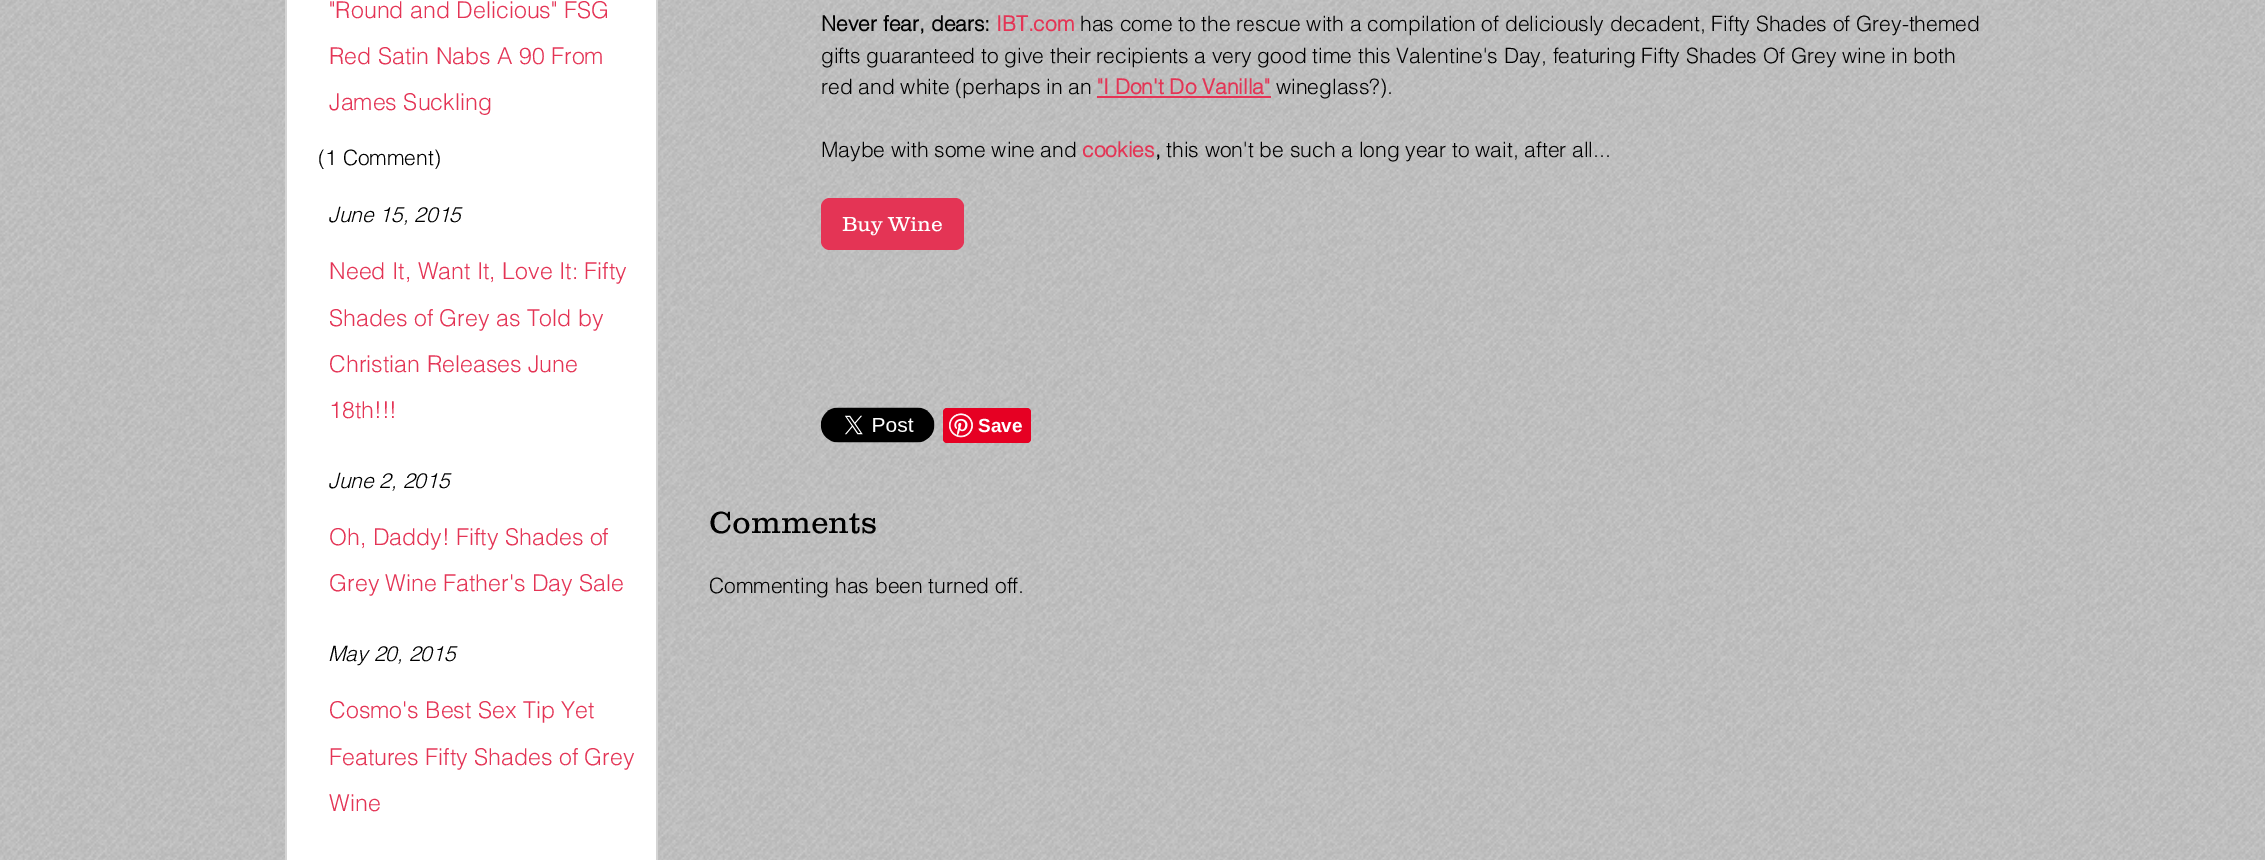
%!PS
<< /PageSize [2265 860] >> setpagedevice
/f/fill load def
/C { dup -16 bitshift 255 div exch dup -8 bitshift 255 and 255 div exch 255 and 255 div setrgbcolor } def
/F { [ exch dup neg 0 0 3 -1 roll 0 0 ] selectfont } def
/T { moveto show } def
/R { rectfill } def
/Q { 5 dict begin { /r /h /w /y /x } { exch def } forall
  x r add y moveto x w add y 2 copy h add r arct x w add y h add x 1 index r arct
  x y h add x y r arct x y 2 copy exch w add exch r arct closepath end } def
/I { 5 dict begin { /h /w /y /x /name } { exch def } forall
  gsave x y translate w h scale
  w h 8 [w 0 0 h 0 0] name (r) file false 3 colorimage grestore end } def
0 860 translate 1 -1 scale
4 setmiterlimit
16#FFFFFF C
0 0 2265 860 R
(1.rgb) 0 0 2265 860 I
287 0 369 860 R
16#D4D4D4 C
656 0 2 860 R
285 0 2 860 R
/Helvetica-Light 23.1 F
16#E43455 C
("Round and Delicious" FSG) 329 18 T
(Red Satin Nabs A 90 From) 329 64 T
(James Suckling) 329 110 T
/Helvetica-Light 21 F
16#000000 C
(\(1 Comment\)) 318 165 T
/Helvetica-LightItalic 21 F
(June 15, 2015) 328 222 T
/Helvetica-Light 23.1 F
16#E43455 C
(Need It, Want It, Love It: Fifty) 329 279 T
(Shades of Grey as Told by) 329 326 T
(Christian Releases June) 329 372 T
(18th!!!) 329 418 T
/Helvetica-LightItalic 21 F
16#000000 C
(June 2, 2015) 328 488 T
/Helvetica-Light 23.1 F
16#E43455 C
(Oh, Daddy! Fifty Shades of) 329 545 T
(Grey Wine Father's Day Sale) 329 591 T
/Helvetica-LightItalic 21 F
16#000000 C
(May 20, 2015) 328 661 T
/Helvetica-Light 23.1 F
16#E43455 C
(Cosmo's Best Sex Tip Yet) 329 718 T
(Features Fifty Shades of Grey) 329 765 T
(Wine) 329 811 T
/Helvetica-Bold 21 F
16#000000 C
(Never fear, dears:) 821 31 T
16#E43455 C
(IBT.com) 996 31 T
/Helvetica-Light 21 F
16#000000 C
(has come to the rescue with a compilation of deliciously decadent, Fifty Shades of Grey-themed) 1080 31 T
(gifts guaranteed to give their recipients a very good time this Valentine's Day, featuring Fifty Shades Of Grey wine in both) 821 63 T
(red and white \(perhaps in an) 821 94 T
/Helvetica-Bold 21 F
16#E43455 C
("I Don't Do Vanilla") 1097 94 T
1097 96 174 2 R
/Helvetica-Light 21 F
16#000000 C
(wineglass?\).) 1276 94 T
(Maybe with some wine and) 821 157 T
/Helvetica-Bold 21 F
16#E43455 C
(cookies) 1082 157 T
16#000000 C
(,) 1155 157 T
/Helvetica-Light 21 F
(this won't be such a long year to wait, after all...) 1166 157 T
16#E43455 C
821 198 143 52 9 Q f
/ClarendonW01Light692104-Light 21 F
16#FFFFFF C
(Buy Wine) 842 231 T
(2.rgb) 820 407 115 36 I
16#E60023 C
943 408 88 35 4 Q f
(3.rgb) 949 413 24 25 I
/LiberationSans-Bold 19 F
16#FFFFFF C
(Save) 978 432 T
/ClarendonW01Light692104-Light 31.5 F
16#000000 C
(Comments) 709 533 T
/Helvetica-Light 21 F
(Commenting has been turned off.) 709 593 T
showpage
